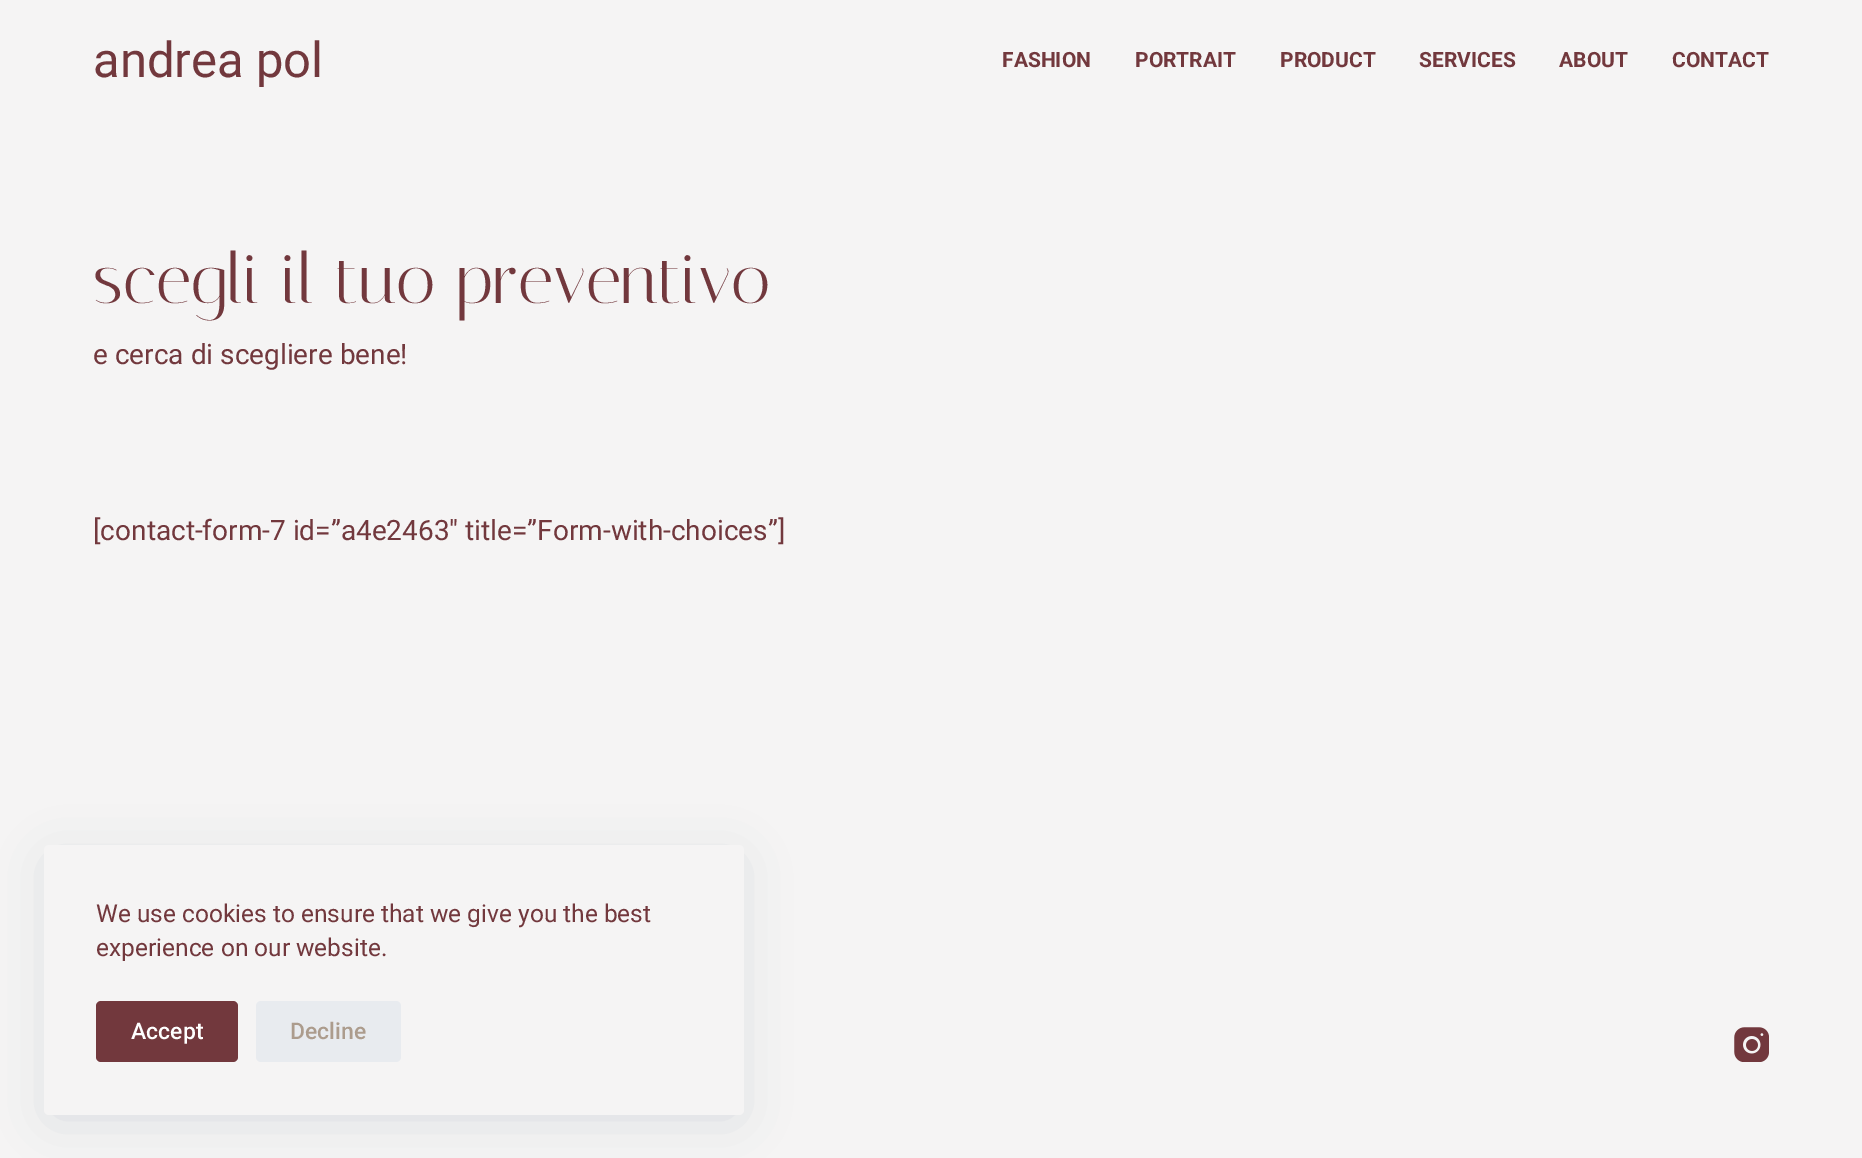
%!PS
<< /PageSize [1862 1158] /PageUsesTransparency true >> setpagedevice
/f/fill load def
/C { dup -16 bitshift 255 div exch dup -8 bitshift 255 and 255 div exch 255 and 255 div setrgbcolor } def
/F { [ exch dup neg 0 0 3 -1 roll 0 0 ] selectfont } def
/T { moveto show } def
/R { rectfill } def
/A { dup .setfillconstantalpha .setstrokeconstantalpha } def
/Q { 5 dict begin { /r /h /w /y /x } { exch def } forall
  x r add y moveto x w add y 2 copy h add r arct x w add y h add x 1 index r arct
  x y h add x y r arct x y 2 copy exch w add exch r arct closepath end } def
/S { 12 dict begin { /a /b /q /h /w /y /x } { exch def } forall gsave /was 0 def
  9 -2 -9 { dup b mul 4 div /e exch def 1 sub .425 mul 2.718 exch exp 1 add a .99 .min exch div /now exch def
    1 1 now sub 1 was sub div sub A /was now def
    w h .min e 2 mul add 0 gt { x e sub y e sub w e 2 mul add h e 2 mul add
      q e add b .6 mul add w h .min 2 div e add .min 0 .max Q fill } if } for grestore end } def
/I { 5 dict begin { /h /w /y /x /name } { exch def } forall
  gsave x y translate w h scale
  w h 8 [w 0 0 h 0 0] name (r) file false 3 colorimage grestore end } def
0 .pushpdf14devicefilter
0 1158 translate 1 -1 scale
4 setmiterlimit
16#F5F4F4 C
0 0 1862 1158 R
/Roboto-Regular 49 F
16#72383D C
(andrea pol) 93 77 T
/Roboto-Bold 21 F
(FASHION) 1002 67 T
(PORTRAIT) 1135 67 T
(PRODUCT) 1280 67 T
(SERVICES) 1419 67 T
(ABOUT) 1559 67 T
(CONTACT) 1672 67 T
/Italiana-Regular 70 F
(scegli il tuo preventivo) 93 303 T
/Roboto-Regular 28 F
(e cerca di scegliere bene!) 93 364 T
([contact-form-7 id=”a4e2463″ title=”Form-with-choices”]) 93 540 T
(1.rgb) 1734 1027 35 35 I
16#223865 C
53 863 682 252 0 26 .15 S
16#F5F4F4 C
44 845 700 270 5 Q f
/Roboto-Regular 24.5 F
16#72383D C
(We use cookies to ensure that we give you the best) 96 922 T
(experience on our website.) 96 956 T
96 1001 142 61 5 Q f
/Roboto-Medium 23 F
16#FFFFFF C
(Accept) 131 1039 T
16#E8EBEF C
256 1001 145 61 5 Q f
16#AC9C8D C
(Decline) 290 1039 T
.poppdf14devicefilter showpage
